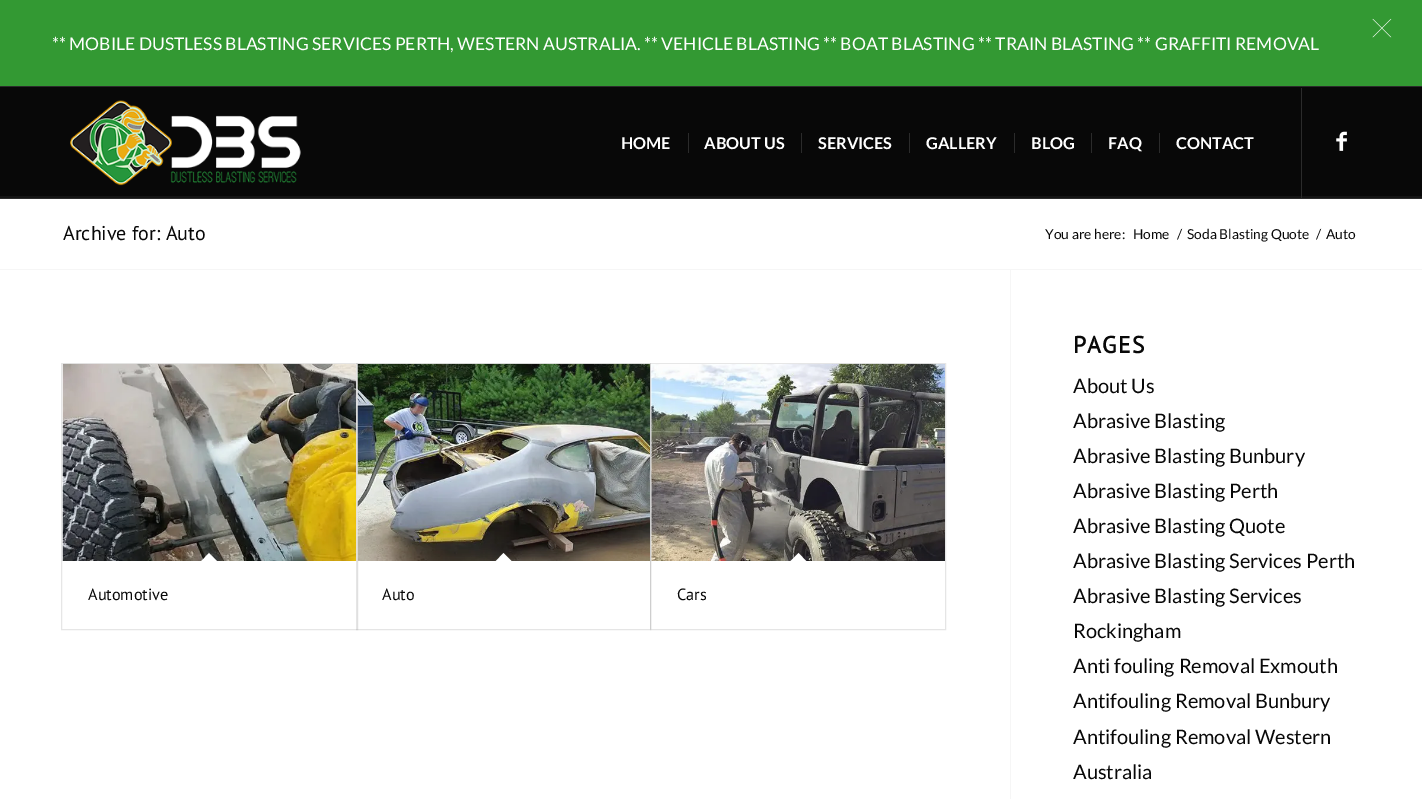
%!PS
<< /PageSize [1422 799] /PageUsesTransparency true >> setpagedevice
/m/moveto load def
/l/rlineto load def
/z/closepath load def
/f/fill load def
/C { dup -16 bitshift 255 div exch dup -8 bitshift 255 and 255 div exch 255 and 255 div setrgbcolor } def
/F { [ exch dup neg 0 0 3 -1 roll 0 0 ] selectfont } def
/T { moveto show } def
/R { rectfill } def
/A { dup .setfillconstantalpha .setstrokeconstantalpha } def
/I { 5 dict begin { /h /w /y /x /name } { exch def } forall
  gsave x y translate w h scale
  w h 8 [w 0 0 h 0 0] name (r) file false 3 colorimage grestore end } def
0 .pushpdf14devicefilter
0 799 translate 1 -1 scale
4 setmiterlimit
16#080808 C
0 0 1422 799 R
16#339933 C
0 0 1422 86 R
(1.rgb) 1372 18 20 20 I
/Lato-Regular 17.5 F
16#FFFFFF C
(** MOBILE DUSTLESS BLASTING SERVICES PERTH, WESTERN AUSTRALIA. ** VEHICLE BLASTING ** BOAT BLASTING ** TRAIN BLASTING ** GRAFFITI REMOVAL) 52 50 T
16#2B2B2B C
0 86 1422 1 R
0 198 1422 1 R
(2.rgb) 70 100 231 86 I
16#141414 C
0 196 1422 2 R
16#2B2B2B C
1301 88 1 110 R
/Lato-Bold 16.25 F
16#FFFFFF C
(HOME) 621 149 T
(ABOUT US) 704 149 T
16#2B2B2B C
688 133 1 20 R
16#FFFFFF C
(SERVICES) 818 149 T
16#2B2B2B C
801 133 1 20 R
16#FFFFFF C
(GALLERY) 926 149 T
16#2B2B2B C
909 133 1 20 R
16#FFFFFF C
(BLOG) 1031 149 T
16#2B2B2B C
1014 133 1 20 R
16#FFFFFF C
(FAQ) 1108 149 T
16#2B2B2B C
1091 133 1 20 R
16#FFFFFF C
(CONTACT) 1176 149 T
16#2B2B2B C
1159 133 1 20 R
(3.rgb) 1336 131 11 20 I
16#FFFFFF C
0 199 1422 70 R
/PTSans-Regular 20 F
16#080808 C
(Archive for: Auto) 63 240 T
/Lato-Regular 13.75 F
(You are here:) 1045 239 T
(Home) 1133 239 T
(/) 1177 239 T
(Soda Blasting Quote) 1187 239 T
(/) 1316 239 T
(Auto) 1326 239 T
16#FFFFFF C
0 270 1422 529 R
16#F6F6F6 C
0 269 1422 1 R
16#E6E6E6 C
61.5 363.5 296 266 rectstroke
(4.rgb) 62 363 295 198 I
16#FFFFFF C
209 553 m 9 9 l -9 9 l -8.5 -9 l z f
/PTSans-Regular 16.25 F
16#080808 C
(Automotive) 88 600 T
0.1 A
16#000000 C
356.5 363.5 294 266 rectstroke
1 A
(5.rgb) 357 363 293 198 I
16#FFFFFF C
503.5 553 m 9 9 l -9 9 l -8.5 -9 l z f
16#080808 C
(Auto) 382 600 T
0.1 A
16#000000 C
650.5 363.5 295 266 rectstroke
1 A
(6.rgb) 651 363 294 198 I
16#FFFFFF C
798.5 553 m 8.5 9 l -8.5 9 l -9 -9 l z f
16#080808 C
(Cars) 677 600 T
16#F6F6F6 C
1010 270 1 529 R
/PTSans-Bold 23.5 F
16#080808 C
1073 353 m 1.25 0 (PAGES) ashow
/Lato-Regular 20 F
(About Us) 1073 393 T
(Abrasive Blasting) 1073 428 T
(Abrasive Blasting Bunbury) 1073 463 T
(Abrasive Blasting Perth) 1073 498 T
(Abrasive Blasting Quote) 1073 533 T
(Abrasive Blasting Services Perth) 1073 568 T
(Abrasive Blasting Services) 1073 603 T
(Rockingham) 1073 638 T
(Anti fouling Removal Exmouth) 1073 673 T
(Antifouling Removal Bunbury) 1073 708 T
(Antifouling Removal Western) 1073 744 T
(Australia) 1073 779 T
.poppdf14devicefilter showpage
